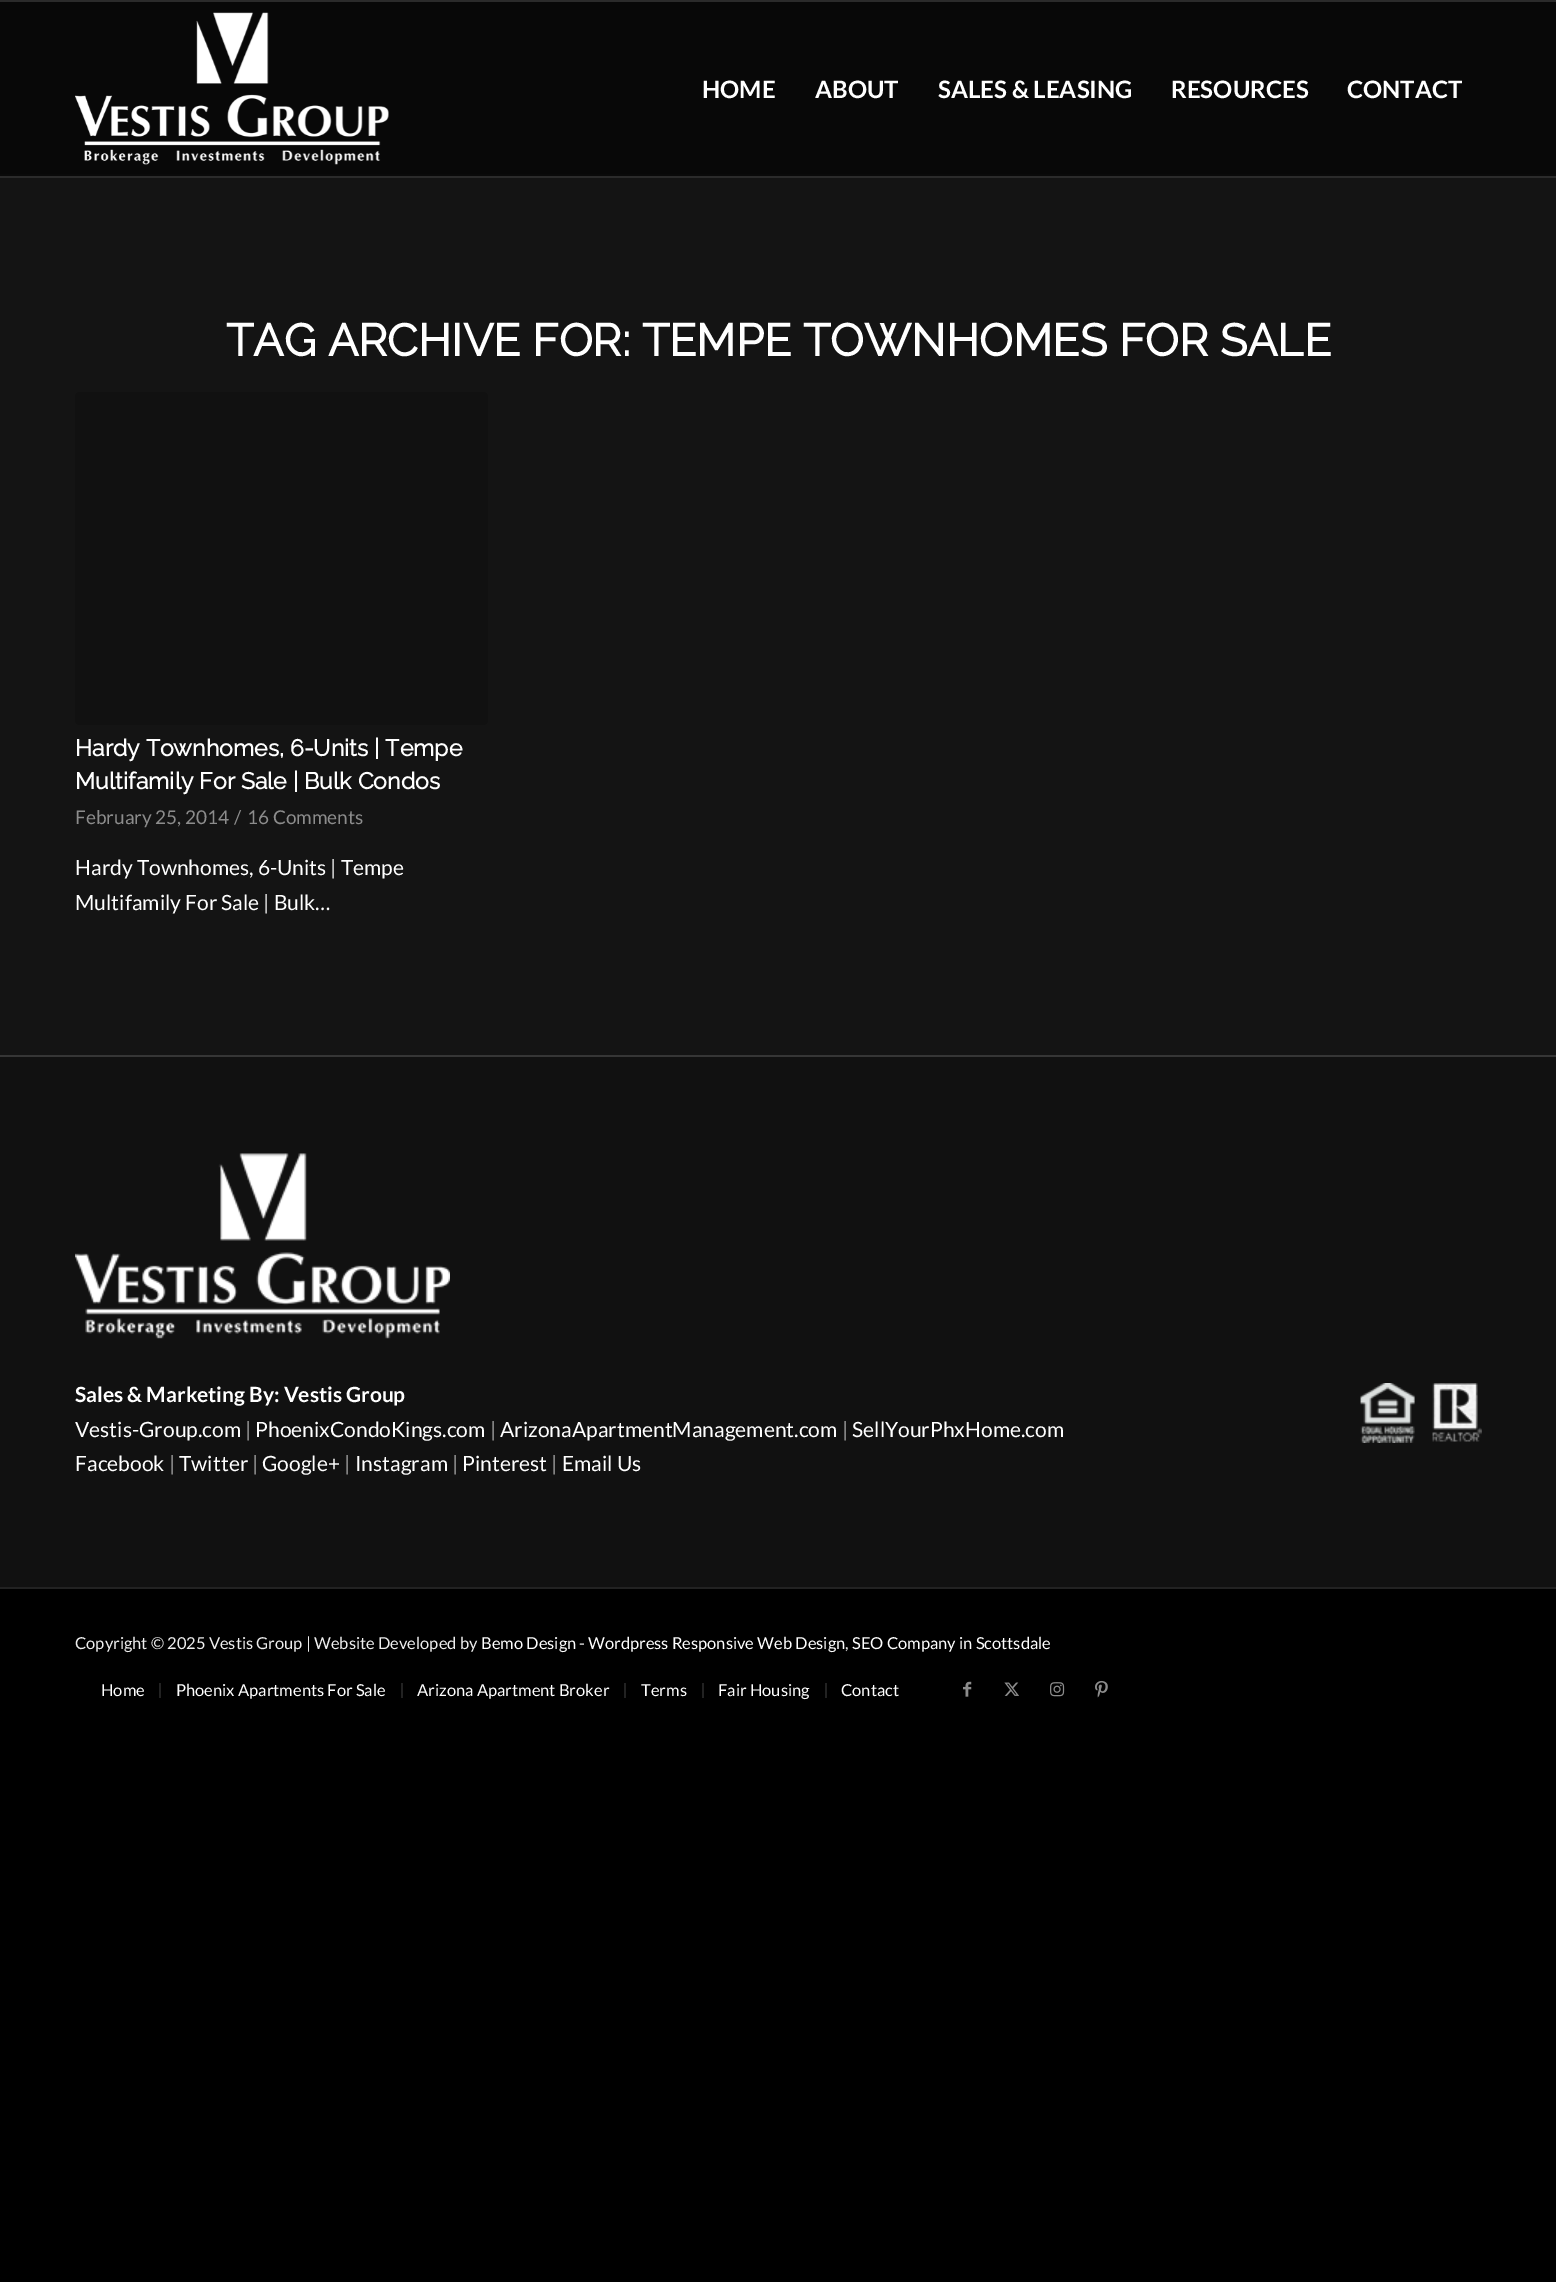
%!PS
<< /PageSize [1556 2282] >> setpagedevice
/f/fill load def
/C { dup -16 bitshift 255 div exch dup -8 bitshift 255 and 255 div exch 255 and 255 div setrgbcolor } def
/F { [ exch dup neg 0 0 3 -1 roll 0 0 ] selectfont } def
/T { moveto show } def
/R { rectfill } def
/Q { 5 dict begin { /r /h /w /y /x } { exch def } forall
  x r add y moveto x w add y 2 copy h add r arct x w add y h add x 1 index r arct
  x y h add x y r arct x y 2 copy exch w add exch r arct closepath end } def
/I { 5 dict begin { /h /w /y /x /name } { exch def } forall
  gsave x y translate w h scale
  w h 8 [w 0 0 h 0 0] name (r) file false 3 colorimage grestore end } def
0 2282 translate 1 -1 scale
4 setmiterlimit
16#000000 C
0 0 1556 2282 R
16#2B2B2B C
0 0 1556 2 R
0 176 1556 2 R
16#080808 C
0 2 1556 172 R
(1.rgb) 75 12 314 153 I
/Lato-Bold 24 F
16#FFFFFF C
(HOME) 702 98 T
(ABOUT) 815 98 T
(SALES & LEASING) 938 98 T
(RESOURCES) 1171 98 T
(CONTACT) 1347 98 T
16#141414 C
0 178 1556 877 R
16#0A0A0A C
0 174 1556 2 R
/Raleway-Bold 45 F
16#FFFFFF C
(TAG ARCHIVE FOR: TEMPE TOWNHOMES FOR SALE) 226 356 T
16#111111 C
75 392 413 333 5 Q f
/Raleway-Bold 23.1 F
16#FFFFFF C
(Hardy Townhomes, 6-Units | Tempe) 75 756 T
(Multifamily For Sale | Bulk Condos) 75 789 T
/Lato-Regular 19 F
16#8C8C8C C
(February 25, 2014) 75 824 T
(/) 234 824 T
(16 Comments) 247 824 T
/Lato-Regular 21 F
16#FFFFFF C
(Hardy Townhomes, 6-Units | Tempe) 75 875 T
(Multifamily For Sale | Bulk…) 75 910 T
16#111111 C
0 1057 1556 530 R
16#363636 C
0 1055 1556 2 R
(2.rgb) 75 1153 375 186 I
/Lato-Bold 21 F
16#FFFFFF C
(Sales & Marketing By: Vestis Group) 75 1402 T
(3.rgb) 1360 1383 122 60 I
/Lato-Regular 21 F
(Vestis-Group.com) 75 1437 T
16#AAAAAA C
(|) 245 1437 T
16#FFFFFF C
(PhoenixCondoKings.com) 255 1437 T
16#AAAAAA C
(|) 490 1437 T
16#FFFFFF C
(ArizonaApartmentManagement.com) 500 1437 T
16#AAAAAA C
(|) 842 1437 T
16#FFFFFF C
(SellYourPhxHome.com) 852 1437 T
(Facebook) 75 1471 T
16#AAAAAA C
(|) 169 1471 T
16#FFFFFF C
(Twitter) 179 1471 T
16#AAAAAA C
(|) 252 1471 T
16#FFFFFF C
(Google+) 262 1471 T
16#AAAAAA C
(|) 344 1471 T
16#FFFFFF C
(Instagram) 355 1471 T
16#AAAAAA C
(|) 452 1471 T
16#FFFFFF C
(Pinterest) 462 1471 T
16#AAAAAA C
(|) 551 1471 T
16#FFFFFF C
(Email Us) 562 1471 T
16#222222 C
0 1587 1556 2 R
/Lato-Regular 16.5 F
16#EEEEEE C
(Copyright © 2025 Vestis Group | Website Developed by) 75 1649 T
16#FFFFFF C
(Bemo Design) 481 1649 T
16#EEEEEE C
(-) 579 1649 T
16#FFFFFF C
(Wordpress Responsive Web Design) 588 1649 T
(SEO Company in Scottsdale) 852 1649 T
16#EEEEEE C
(,) 845 1649 T
16#FFFFFF C
(Home) 101 1696 T
16#222222 C
159 1683 2 15 R
16#FFFFFF C
(Phoenix Apartments For Sale) 176 1696 T
16#222222 C
401 1683 2 15 R
16#FFFFFF C
(Arizona Apartment Broker) 417 1696 T
16#222222 C
624 1683 2 15 R
16#FFFFFF C
(Terms) 641 1696 T
16#222222 C
702 1683 2 15 R
16#FFFFFF C
(Fair Housing) 718 1696 T
16#222222 C
825 1683 2 15 R
16#FFFFFF C
(Contact) 841 1696 T
(4.rgb) 963 1681 9 16 I
(5.rgb) 1004 1682 15 14 I
(6.rgb) 1050 1682 15 15 I
(7.rgb) 1095 1680 13 18 I
showpage
